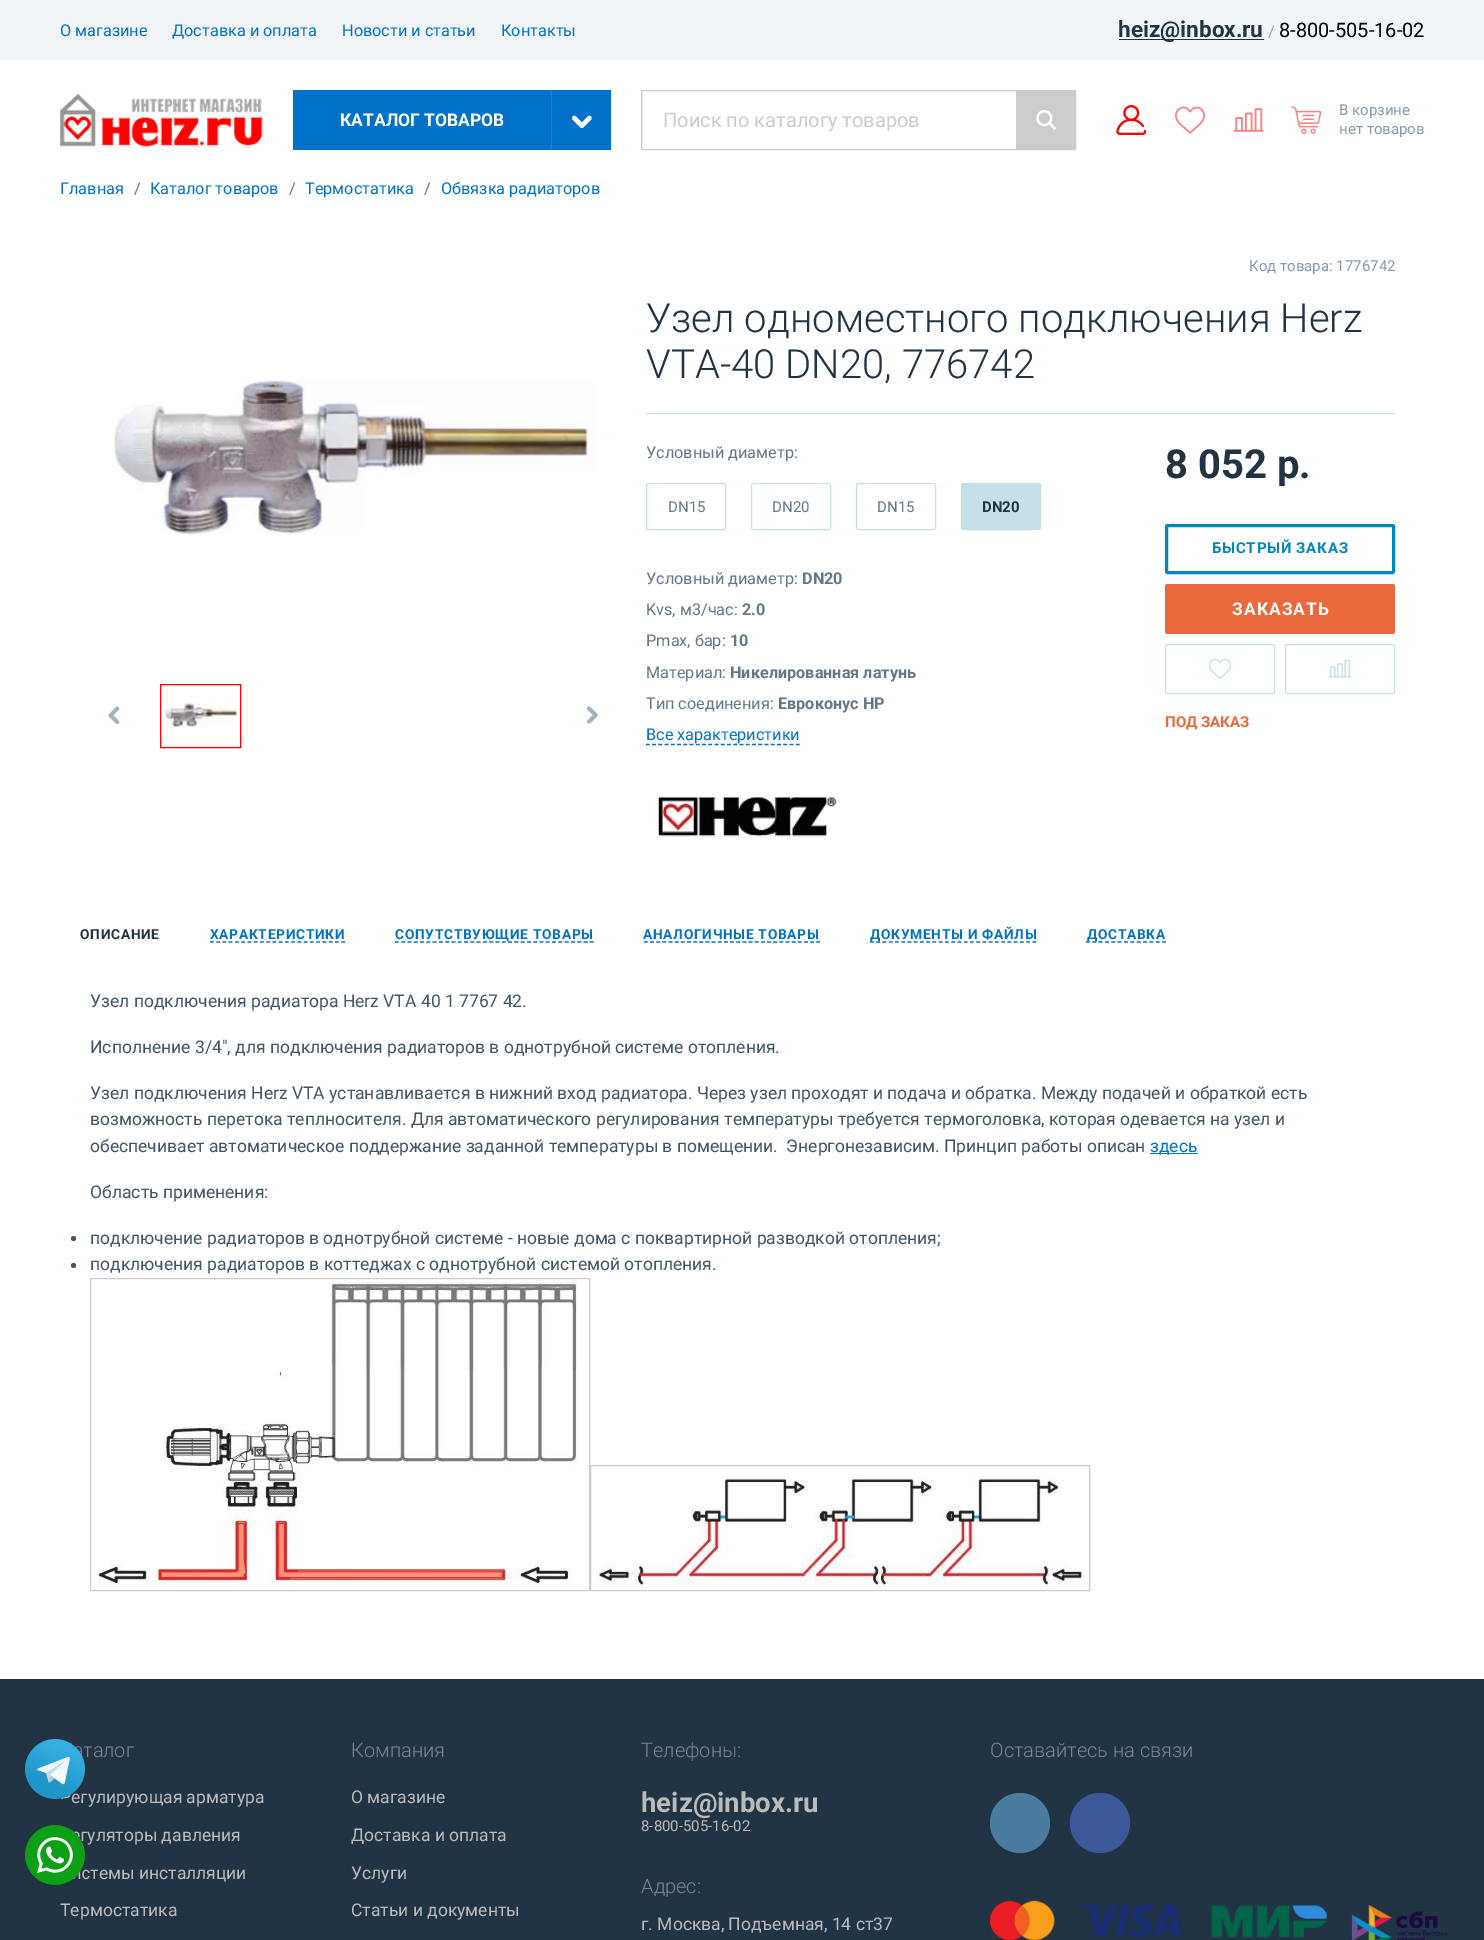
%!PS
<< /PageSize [1484 1940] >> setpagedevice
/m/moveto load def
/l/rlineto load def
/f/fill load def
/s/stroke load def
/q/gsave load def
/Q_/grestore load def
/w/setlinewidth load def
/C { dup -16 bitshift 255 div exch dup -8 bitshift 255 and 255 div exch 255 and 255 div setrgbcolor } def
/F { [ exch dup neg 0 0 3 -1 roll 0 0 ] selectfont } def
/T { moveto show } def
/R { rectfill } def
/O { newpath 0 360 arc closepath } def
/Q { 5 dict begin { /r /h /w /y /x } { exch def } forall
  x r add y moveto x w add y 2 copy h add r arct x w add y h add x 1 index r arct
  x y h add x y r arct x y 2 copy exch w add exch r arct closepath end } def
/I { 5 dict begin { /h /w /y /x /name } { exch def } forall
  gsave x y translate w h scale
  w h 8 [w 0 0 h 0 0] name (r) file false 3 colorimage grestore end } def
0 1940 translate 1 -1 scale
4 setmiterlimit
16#FFFFFF C
0 0 1484 1940 R
16#F1F5F8 C
0 0 1484 60 R
/Roboto-Regular 16.25 F
16#0172C7 C
(О магазине) 60 36 T
(Доставка и оплата) 172 36 T
(Новости и статьи) 342 36 T
(Контакты) 501 36 T
16#223344 C
1119 39 145 1 R
/Roboto-Bold 22.5 F
(heiz@inbox.ru) 1118 37 T
/Roboto-Regular 16.25 F
16#99AABB C
(/) 1268 37 T
/Roboto-Regular 20 F
16#000000 C
(8-800-505-16-02) 1279 37 T
(1.rgb) 60 93 203 54 I
16#0172C7 C
293 90 258 60 R
/Roboto-Bold 17.5 F
16#FFFFFF C
(КАТАЛОГ ТОВАРОВ) 340 126 T
16#0172C7 C
552 90 59 60 R
16#1A80CD C
551 90 1 60 R
(2.rgb) 572 115 20 14 I
16#CCCCCC C
641.5 90.5 434 59 rectstroke
/Roboto-Regular 20 F
(Поиск по каталогу товаров) 663 127 T
1016 91 59 58 R
(3.rgb) 1036 110 20 20 I
(4.rgb) 1116 105 30 30 I
(5.rgb) 1175 106 30 28 I
(6.rgb) 1234 108 30 24 I
(7.rgb) 1291 106 30 28 I
/Roboto-Regular 15 F
16#8899AA C
(В корзине) 1339 115 T
(нет товаров) 1339 134 T
/Roboto-Regular 16.25 F
16#0172C7 C
(Главная) 60 194 T
16#667788 C
(/) 134 194 T
16#0172C7 C
(Каталог товаров) 150 194 T
16#667788 C
(/) 289 194 T
16#0172C7 C
(Термостатика) 305 194 T
16#667788 C
(/) 424 194 T
16#0172C7 C
(Обвязка радиаторов) 441 194 T
(8.rgb) 114 379 482 157 I
(9.rgb) 108 706 12 18 I
16#FE0000 C
160.5 684.5 80 63 rectstroke
(10.rgb) 164 702 75 25 I
(11.rgb) 586 706 12 18 I
/Roboto-Regular 15 F
16#8899AA C
(Код товара: 1776742) 1249 271 T
/Roboto-Light 40 F
16#223344 C
(Узeл одноместного подключения Herz) 646 332 T
(VTA-40 DN20, 776742) 646 378 T
16#C6E0E8 C
646 413 749 1 R
/Roboto-Regular 16.25 F
16#667788 C
(Условный диаметр:) 646 458 T
16#C6E0E8 C
646.5 483.5 79 46 2 Q s
/Roboto-Regular 15 F
16#667788 C
(DN15) 668 512 T
16#C6E0E8 C
751.5 483.5 79 46 2 Q s
16#667788 C
(DN20) 772 512 T
16#C6E0E8 C
856.5 483.5 79 46 2 Q s
16#667788 C
(DN15) 877 512 T
16#C6E0E8 C
961.5 483.5 79 46 2 Q q f Q_
s
/Roboto-Bold 15 F
16#223344 C
(DN20) 982 512 T
/Roboto-Regular 16.25 F
16#667788 C
(Условный диаметр:) 646 584 T
/Roboto-Bold 16.25 F
(DN20) 802 584 T
/Roboto-Regular 16.25 F
(Kvs, м3/час:) 646 615 T
/Roboto-Bold 16.25 F
(2.0) 742 615 T
/Roboto-Regular 16.25 F
(Pmax, бар:) 646 646 T
/Roboto-Bold 16.25 F
(10) 730 646 T
/Roboto-Regular 16.25 F
(Материал:) 646 678 T
/Roboto-Bold 16.25 F
(Никелированная латунь) 730 678 T
/Roboto-Regular 16.25 F
(Тип соединения:) 646 709 T
/Roboto-Bold 16.25 F
(Евроконус НР) 778 709 T
16#0172C7 C
1.2 w
[3.75 2.5] 0 setdash
646 744.5 m 154 0 l s
/Roboto-Regular 16.25 F
(Все характеристики) 646 740 T
(12.rgb) 658 797 179 40 I
/Roboto-Bold 40 F
16#223344 C
(8 052 р.) 1165 478 T
16#0088BB C
3 w
[] 0 setdash
1166.5 525.5 227 47 1 Q s
/Roboto-Bold 15 F
1212 553 m .75 0 (БЫСТРЫЙ ЗАКАЗ) ashow
16#EA693C C
1165 584 230 50 2.5 Q f
/Roboto-Bold 17.5 F
16#FFFFFF C
1232 615 m 1 0 (ЗАКАЗАТЬ) ashow
16#C6E0E8 C
1 w
1165.5 644.5 109 49 2 Q s
(13.rgb) 1209 658 22 21 I
1285.5 644.5 109 49 2 Q s
(14.rgb) 1329 660 22 18 I
/Roboto-Bold 15 F
16#EA693C C
(ПОД ЗАКАЗ) 1165 727 T
/Roboto-Bold 13.75 F
16#223344 C
80 939 m .7 0 (ОПИСАНИЕ) ashow
16#0172C7 C
1.2 w
[3.75 2.5] 0 setdash
210 942 m 135 0 l s
210 939 m .7 0 (ХАРАКТЕРИСТИКИ) ashow
[3.75 2.54] 0 setdash
395 942 m 199 0 l s
395 939 m .7 0 (СОПУТСТВУЮЩИЕ ТОВАРЫ) ashow
[3.75 2.41] 0 setdash
644 942 m 176 0 l s
643 939 m .7 0 (АНАЛОГИЧНЫЕ ТОВАРЫ) ashow
[3.75 2.5] 0 setdash
870 942 m 166 0 l s
870 939 m .7 0 (ДОКУМЕНТЫ И ФАЙЛЫ) ashow
[3.75 2.6] 0 setdash
1086 942 m 80 0 l s
1087 939 m .7 0 (ДОСТАВКА) ashow
/Roboto-Regular 17.5 F
16#445566 C
(Узел подключения радиатора Herz VTA 40 1 7767 42.) 90 1007 T
(Исполнение 3/4", для подключения радиаторов в однотрубной системе отопления.) 90 1053 T
(Узел подключения Herz VTA устанавливается в нижний вход радиатора. Через узел проходят и подача и обратка. Между подачей и обраткой есть) 90 1099 T
(возможность перетока теплносителя. Для автоматического регулирования температуры требуется термоголовка, которая одевается на узел и) 90 1125 T
(обеспечивает автоматическое поддержание заданной температуры в помещении.  Энергонезависим. Принцип работы описан) 90 1152 T
16#0172C7 C
1150 1153 48 1 R
(здесь) 1150 1152 T
16#445566 C
(Область применения:) 90 1198 T
73.5 1238.5 2.5 O f
(подключение радиаторов в однотрубной системе - новые дома с поквартирной разводкой отопления;) 90 1244 T
73.5 1265.5 2.5 O f
(подключения радиаторов в коттеджах с однотрубной системой отопления.) 90 1270 T
16#CCCCCC C
1 w
[] 0 setdash
90.5 1278.5 499 312 rectstroke
(15.rgb) 98 1280 479 308 I
590.5 1465.5 499 125 rectstroke
(16.rgb) 598 1474 488 114 I
16#223344 C
0 1679 1484 261 R
/Roboto-Light 20 F
16#7A858F C
(талог) 83 1757 T
/Roboto-Regular 17.5 F
16#BBBBBB C
(егулирующая арматура) 71 1803 T
(17.rgb) 25 1739 60 60 I
(гуляторы давления) 80 1841 T
(стемы инсталляции) 81 1879 T
(18.rgb) 25 1825 60 60 I
(Термостатика) 60 1916 T
/Roboto-Light 20 F
16#7A858F C
(Компания) 351 1757 T
/Roboto-Regular 17.5 F
16#BBBBBB C
(О магазине) 351 1803 T
(Доставка и оплата) 351 1841 T
(Услуги) 351 1879 T
(Статьи и документы) 351 1916 T
/Roboto-Light 20 F
16#7A858F C
(Телефоны:) 641 1757 T
/Roboto-Bold 27.5 F
16#BBBBBB C
(heiz@inbox.ru) 641 1812 T
/Roboto-Regular 15 F
(8-800-505-16-02) 641 1831 T
/Roboto-Light 20 F
16#7A858F C
(Адрес:) 641 1893 T
/Roboto-Regular 17.5 F
16#BBBBBB C
(г. Москва, Подъемная, 14 ст37) 641 1930 T
/Roboto-Light 20 F
16#7A858F C
(Оставайтесь на связи) 990 1757 T
16#4A7C9F C
1020 1823 30 O f
16#3B5998 C
1100 1823 30 O f
(19.rgb) 990 1900 458 40 I
showpage
